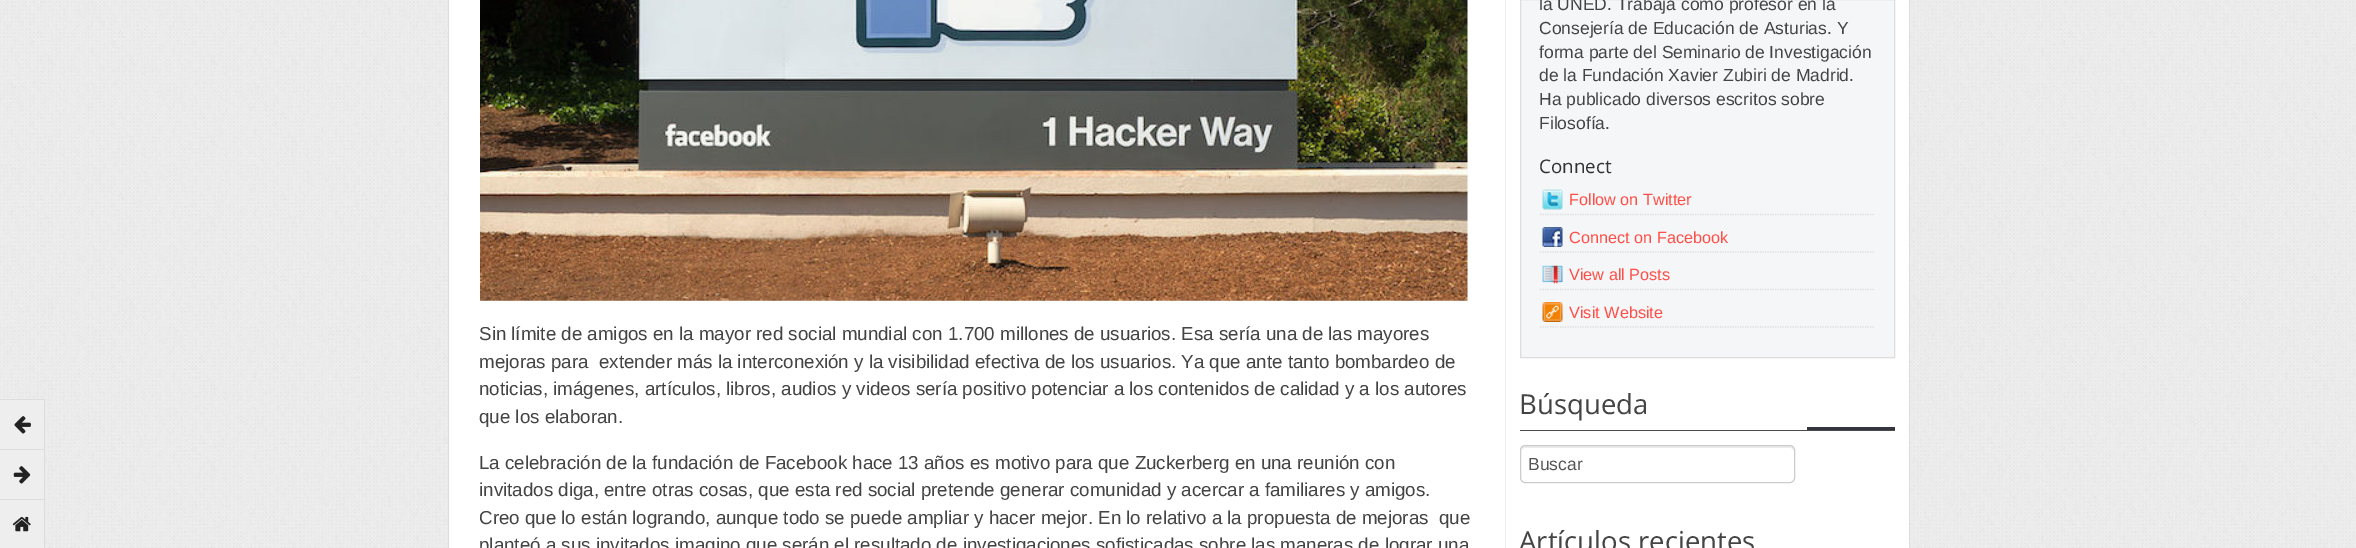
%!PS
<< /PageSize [2356 548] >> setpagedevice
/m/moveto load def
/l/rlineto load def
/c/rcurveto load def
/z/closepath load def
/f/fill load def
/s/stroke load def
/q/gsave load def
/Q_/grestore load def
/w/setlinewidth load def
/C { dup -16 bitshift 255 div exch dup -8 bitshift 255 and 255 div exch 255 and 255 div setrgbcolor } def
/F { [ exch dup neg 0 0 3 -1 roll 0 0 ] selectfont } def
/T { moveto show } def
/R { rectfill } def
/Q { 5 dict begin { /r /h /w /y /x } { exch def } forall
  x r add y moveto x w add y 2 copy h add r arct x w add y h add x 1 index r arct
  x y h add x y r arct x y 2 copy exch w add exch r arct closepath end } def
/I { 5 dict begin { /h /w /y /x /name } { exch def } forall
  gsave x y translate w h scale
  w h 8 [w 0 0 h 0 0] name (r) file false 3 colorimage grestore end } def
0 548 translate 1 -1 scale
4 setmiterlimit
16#FFFFFF C
0 0 2356 548 R
(1.rgb) 0 0 2356 548 I
16#EEEEEE C
0 400 44 49 R
16#DDDDDD C
0 399 45 1 R
44 399 1 50 R
(2.rgb) 14 416 17 18 I
16#EEEEEE C
0 450 44 49 R
16#DDDDDD C
0 449 45 1 R
44 449 1 50 R
(3.rgb) 13 466 18 18 I
16#EEEEEE C
0 500 44 48 R
16#DDDDDD C
0 499 45 1 R
44 499 1 49 R
(4.rgb) 12 516 19 16 I
16#FFFFFF C
449 0 1460 548 R
16#DDDDDD C
1909 0 1 548 R
448 0 1 548 R
16#EFEFEF C
1505 0 1 548 R
(5.rgb) 480 0 988 301 I
/LiberationSans-Regular 18.75 F
16#444444 C
(Sin límite de amigos en la mayor red social mundial con 1.700 millones de usuarios. Esa sería una de las mayores) 479 340 T
(mejoras para  extender más la interconexión y la visibilidad efectiva de los usuarios. Ya que ante tanto bombardeo de) 479 368 T
(noticias, imágenes, artículos, libros, audios y videos sería positivo potenciar a los contenidos de calidad y a los autores) 479 395 T
(que los elaboran.) 479 423 T
(La celebración de la fundación de Facebook hace 13 años es motivo para que Zuckerberg en una reunión con) 479 469 T
(invitados diga, entre otras cosas, que esta red social pretende generar comunidad y acercar a familiares y amigos.) 479 496 T
(Creo que lo están logrando, aunque todo se puede ampliar y hacer mejor. En lo relativo a la propuesta de mejoras  que) 479 524 T
(planteó a sus invitados imagino que serán el resultado de investigaciones sofisticadas sobre las maneras de lograr una) 479 551 T
16#F5F6F7 C
1520.5 -.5 m 374 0 l 0 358 l -374 0 l z q f Q_
16#DDDDDD C
s
/LiberationSans-Regular 17.5 F
16#444444 C
(la UNED. Trabaja como profesor en la) 1539 10 T
(Consejería de Educación de Asturias. Y) 1539 34 T
(forma parte del Seminario de Investigación) 1539 58 T
(de la Fundación Xavier Zubiri de Madrid.) 1539 81 T
(Ha publicado diversos escritos sobre) 1539 105 T
(Filosofía.) 1539 129 T
/OpenSans-Regular 18.75 F
16#333333 C
(Connect) 1539 173 T
(6.rgb) 1542 189 21 21 I
16#DDDDDD C
1.2 w
[1.25 1.25] 0 setdash
1540 214.5 m 335 0 l s
/LiberationSans-Regular 16.25 F
16#FE4E47 C
(Follow on Twitter) 1569 205 T
(7.rgb) 1542 227 21 20 I
16#DDDDDD C
1540 252 m 335 0 l s
16#FE4E47 C
(Connect on Facebook) 1569 243 T
(8.rgb) 1542 265 21 19 I
16#DDDDDD C
1540 289.5 m 335 0 l s
16#FE4E47 C
(View all Posts) 1569 280 T
(9.rgb) 1542 302 21 20 I
16#DDDDDD C
1540 327 m 335 0 l s
16#FE4E47 C
(Visit Website) 1569 318 T
16#353540 C
1807 427 88 3 R
16#4A4A4A C
1520 430 375 1 R
/OpenSans-Regular 27.5 F
16#444444 C
(Búsqueda) 1519 414 T
16#ECECEC C
1525 448 m 266 0 l 3 2 l 0 1 l 0 -3 -1 -5 -4 -5 c -265 0 l -3 0 -4 2 -4 5 c 0 -2 2 -3 4 -3 c z f
16#CCCCCC C
1 w
[] 0 setdash
1520.5 445.5 274 37 4.5 Q s
/LiberationSans-Regular 17.5 F
16#555555 C
(Buscar) 1528 470 T
/OpenSans-Regular 27.5 F
16#444444 C
(Artículos recientes) 1519 551 T
showpage
